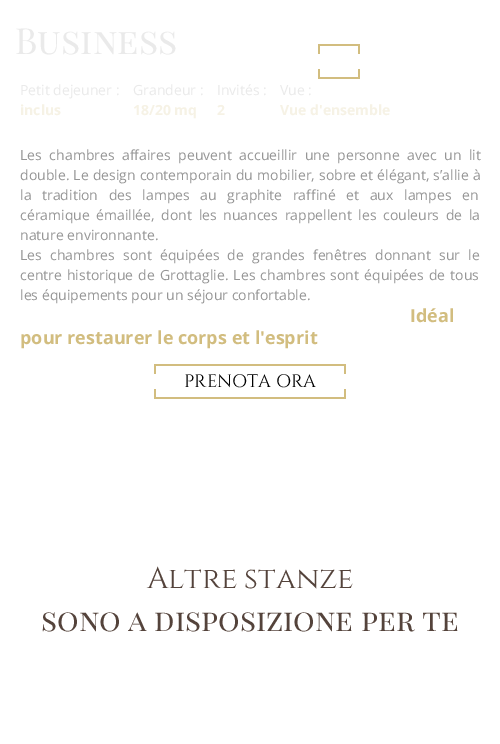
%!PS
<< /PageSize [500 744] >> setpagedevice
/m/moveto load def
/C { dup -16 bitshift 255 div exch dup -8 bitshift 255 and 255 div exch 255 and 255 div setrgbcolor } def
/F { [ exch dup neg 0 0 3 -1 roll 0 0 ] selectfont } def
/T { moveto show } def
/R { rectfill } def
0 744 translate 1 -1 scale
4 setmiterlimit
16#FFFFFF C
0 0 500 744 R
/PlayfairDisplaySC-Regular 36 F
16#EAEAEA C
(Business) 15 54 T
16#D2BD7F C
318 44 42 2 R
358 44 2 10 R
318 44 2 10 R
358 69 2 10 R
318 77 42 2 R
318 69 2 10 R
/OpenSans-Regular 14 F
16#EAEAEA C
(Petit dejeuner :) 20 95 T
/OpenSans-Bold 14 F
16#F6F2E5 C
(inclus) 20 115 T
/OpenSans-Regular 14 F
16#EAEAEA C
(Grandeur :) 133 95 T
/OpenSans-Bold 14 F
16#F6F2E5 C
(18/20 mq) 133 115 T
/OpenSans-Regular 14 F
16#EAEAEA C
(Invités :) 217 95 T
/OpenSans-Bold 14 F
16#F6F2E5 C
(2) 217 115 T
/OpenSans-Regular 14 F
16#EAEAEA C
(Vue :) 280 95 T
/OpenSans-Bold 14 F
16#F6F2E5 C
(Vue d'ensemble) 280 115 T
/OpenSans-Regular 14 F
16#969696 C
20 160 m 4 0 32 (Les chambres affaires peuvent accueillir une personne avec un lit) widthshow
20 180 m .5 0 32 (double. Le design contemporain du mobilier, sobre et élégant, s’allie à) widthshow
20 200 m 7 0 32 (la tradition des lampes au graphite raffiné et aux lampes en) widthshow
20 220 m 3 0 32 (céramique émaillée, dont les nuances rappellent les couleurs de la) widthshow
(nature environnante.) 20 240 T
20 260 m 4.5 0 32 (Les chambres sont équipées de grandes fenêtres donnant sur le) widthshow
20 280 m 1.5 0 32 (centre historique de Grottaglie. Les chambres sont équipées de tous) widthshow
(les équipements pour un séjour confortable.) 20 300 T
/OpenSans-Bold 18 F
16#D2BD7F C
(Idéal) 410 322 T
(pour restaurer le corps et l'esprit) 20 344 T
154 364 192 2 R
344 364 2 10 R
154 364 2 10 R
/Cinzel-Regular 18 F
16#000000 C
(PRENOTA ORA) 184 387 T
16#D2BD7F C
344 389 2 10 R
154 397 192 2 R
154 389 2 10 R
/Cinzel-Regular 30 F
16#54433B C
(Altre stanze) 147 588 T
/PlayfairDisplaySC-Regular 30 F
(sono a disposizione per te) 41 631 T
showpage
